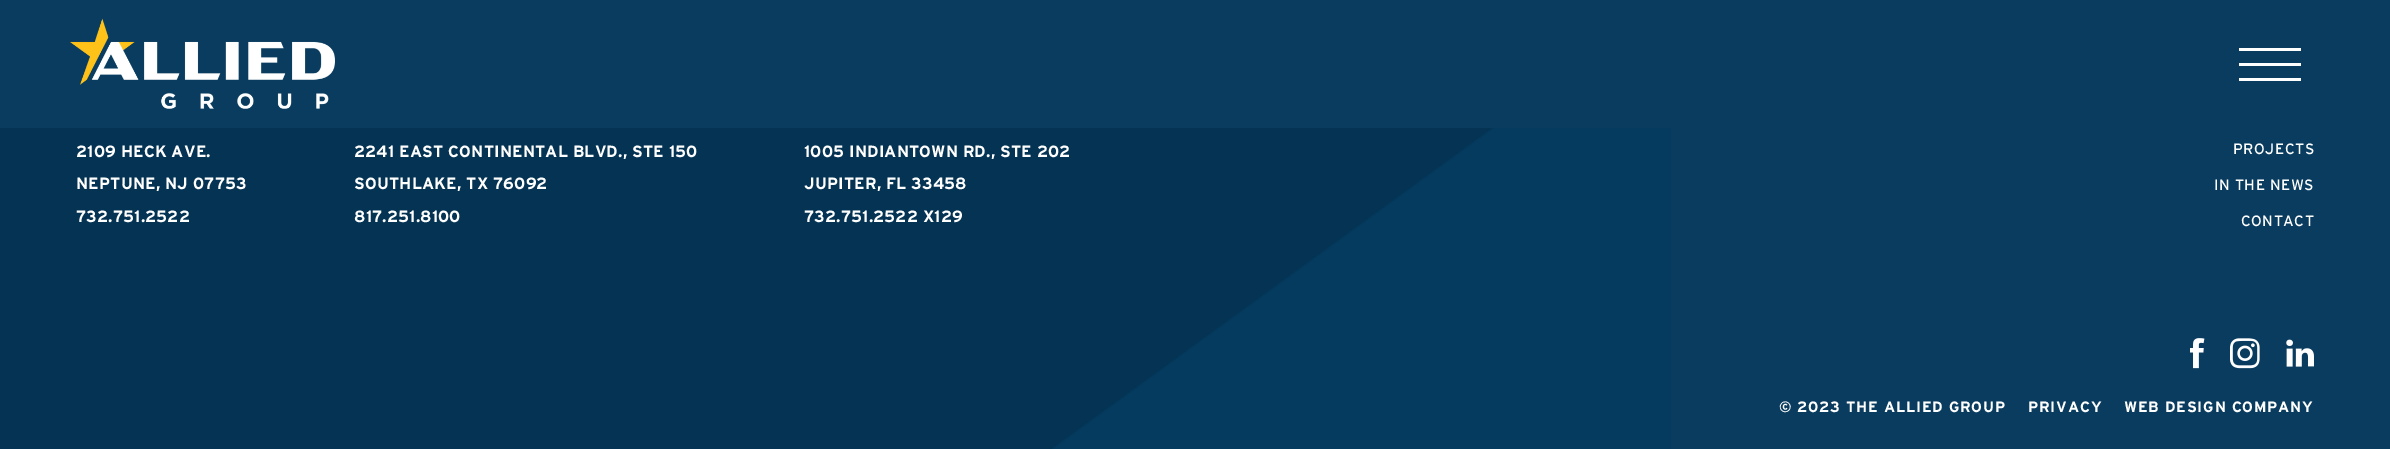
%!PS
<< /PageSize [2390 449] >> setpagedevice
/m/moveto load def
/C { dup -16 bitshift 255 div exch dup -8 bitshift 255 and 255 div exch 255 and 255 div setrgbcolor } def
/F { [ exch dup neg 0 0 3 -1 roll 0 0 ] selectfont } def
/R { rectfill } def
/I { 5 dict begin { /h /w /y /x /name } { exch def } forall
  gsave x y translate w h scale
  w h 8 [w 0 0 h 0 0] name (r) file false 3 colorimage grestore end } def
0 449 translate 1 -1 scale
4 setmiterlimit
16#093C5E C
0 0 2390 449 R
(1.rgb) 70 18 265 91 I
16#FFFFFF C
2239 63 62 3 R
2239 48 62 3 R
2239 78 62 3 R
(2.rgb) 0 128 1671 321 I
/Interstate-Bold 16.25 F
76 157 m .15 0 (2109 HECK AVE.) ashow
76 189 m .15 0 (NEPTUNE, NJ 07753) ashow
76 222 m .15 0 (732.751.2522) ashow
354 157 m .15 0 (2241 EAST CONTINENTAL BLVD., STE 150) ashow
354 189 m .15 0 (SOUTHLAKE, TX 76092) ashow
354 222 m .15 0 (817.251.8100) ashow
804 157 m .15 0 (1005 INDIANTOWN RD., STE 202) ashow
804 189 m .15 0 (JUPITER, FL 33458) ashow
804 222 m .15 0 (732.751.2522 X129) ashow
/Interstate-Regular 15 F
2233 154 m .5 0 (PROJECTS) ashow
2214 190 m .5 0 (IN THE NEWS) ashow
2241 226 m .5 0 (CONTACT) ashow
(3.rgb) 2190 338 15 31 I
(4.rgb) 2230 338 30 31 I
(5.rgb) 2286 339 28 28 I
/Interstate-Bold 15 F
1779 412 m .75 0 (© 2023 THE ALLIED GROUP) ashow
2028 412 m .75 0 (PRIVACY) ashow
2124 412 m .75 0 (WEB DESIGN COMPANY) ashow
showpage
